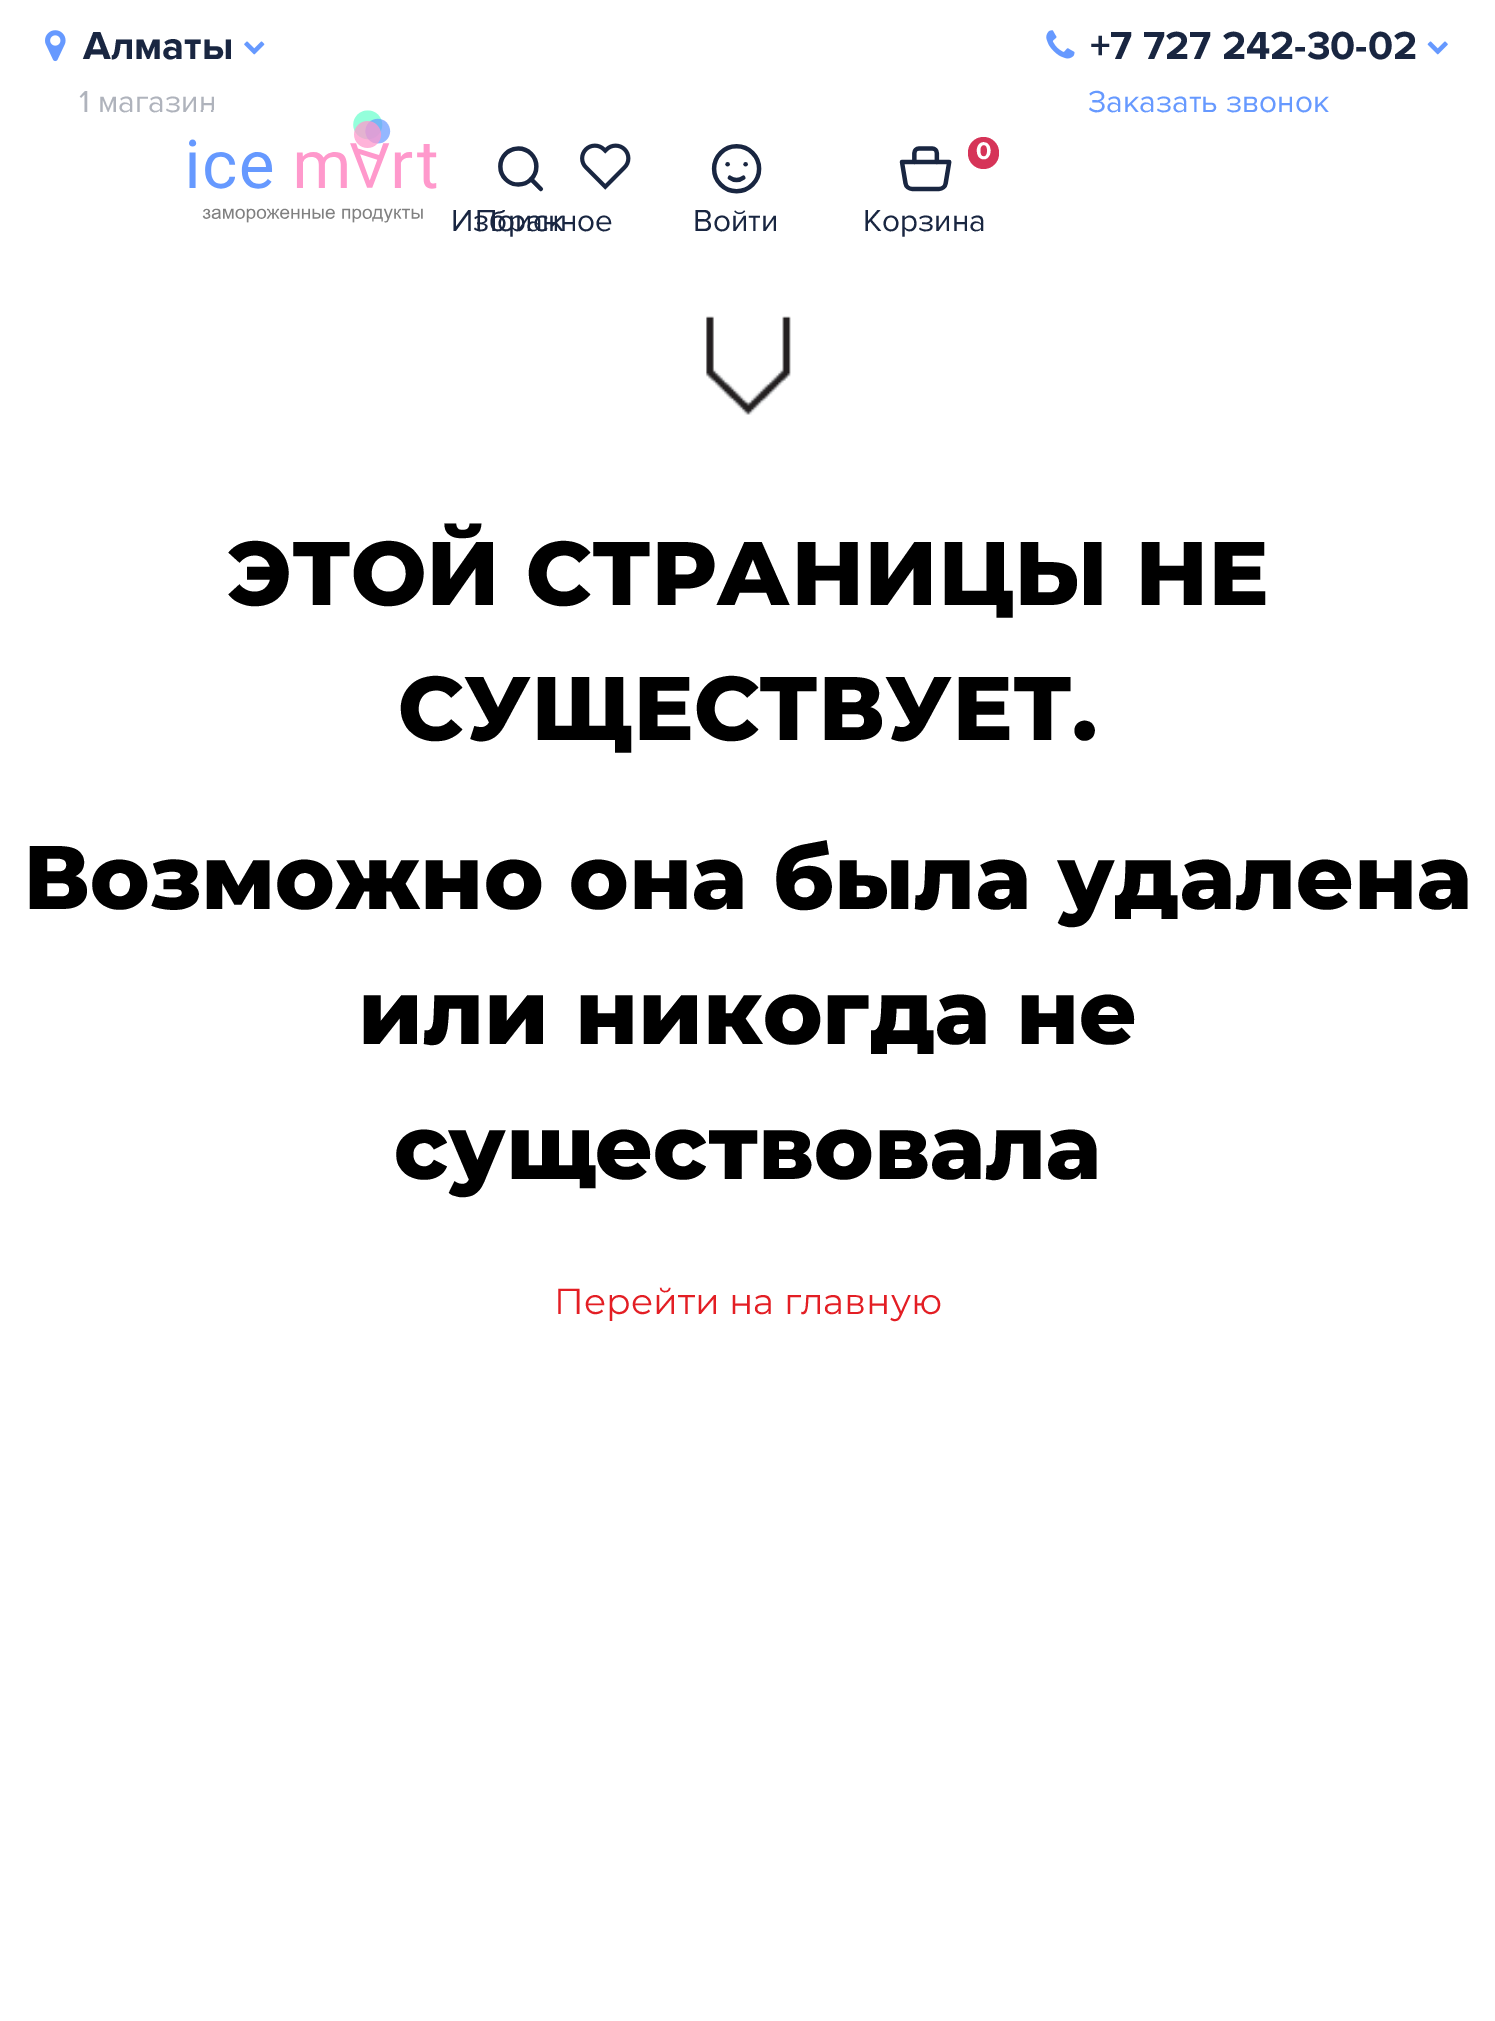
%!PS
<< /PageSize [1495 2021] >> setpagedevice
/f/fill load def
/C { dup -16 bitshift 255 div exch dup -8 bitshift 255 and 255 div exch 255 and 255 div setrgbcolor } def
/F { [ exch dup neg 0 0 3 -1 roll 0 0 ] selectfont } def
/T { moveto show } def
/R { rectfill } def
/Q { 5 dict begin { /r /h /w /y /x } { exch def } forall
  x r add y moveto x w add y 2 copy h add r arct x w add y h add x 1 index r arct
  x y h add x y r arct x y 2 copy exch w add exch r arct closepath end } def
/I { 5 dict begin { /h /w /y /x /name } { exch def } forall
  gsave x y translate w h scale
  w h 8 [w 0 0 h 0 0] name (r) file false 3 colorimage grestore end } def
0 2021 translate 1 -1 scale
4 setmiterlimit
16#FFFFFF C
0 0 1495 2021 R
(1.rgb) 45 30 21 32 I
/ProximaNova-Bold 40.5 F
16#192641 C
(Алматы) 83 59 T
(2.rgb) 244 41 21 14 I
/ProximaNova-Regular 31.5 F
16#AFB3BC C
(1 магазин) 79 112 T
(3.rgb) 1046 30 29 29 I
/ProximaNova-Bold 40.5 F
16#192641 C
(+7 727 242-30-02) 1090 59 T
(4.rgb) 1427 41 21 14 I
/ProximaNova-Regular 31.5 F
16#6699FF C
(Заказать звонок) 1088 112 T
(5.rgb) 189 110 248 113 I
(6.rgb) 580 143 51 47 I
16#192641 C
(Поиск) 475 231 T
(Избранное) 451 231 T
(7.rgb) 899 146 53 46 I
16#D63458 C
968 137 31 32 15.5 Q f
/ProximaNova-Bold 25 F
16#FFFFFF C
(0) 976 159 T
/ProximaNova-Regular 31.5 F
16#192641 C
(Корзина) 863 231 T
(8.rgb) 498 146 46 46 I
(9.rgb) 711 144 51 50 I
(Войти) 693 231 T
(10.rgb) 706 316 85 99 I
/Montserrat-ExtraBold 90 F
16#000000 C
(ЭТОЙ СТРАНИЦЫ НЕ) 227 605 T
(СУЩЕСТВУЕТ.) 398 740 T
(Возможно она была удалена) 23 909 T
(или никогда не) 358 1044 T
(существовала) 394 1179 T
/Montserrat-Regular 36 F
16#E31E24 C
(Перейти на главную) 554 1314 T
showpage
